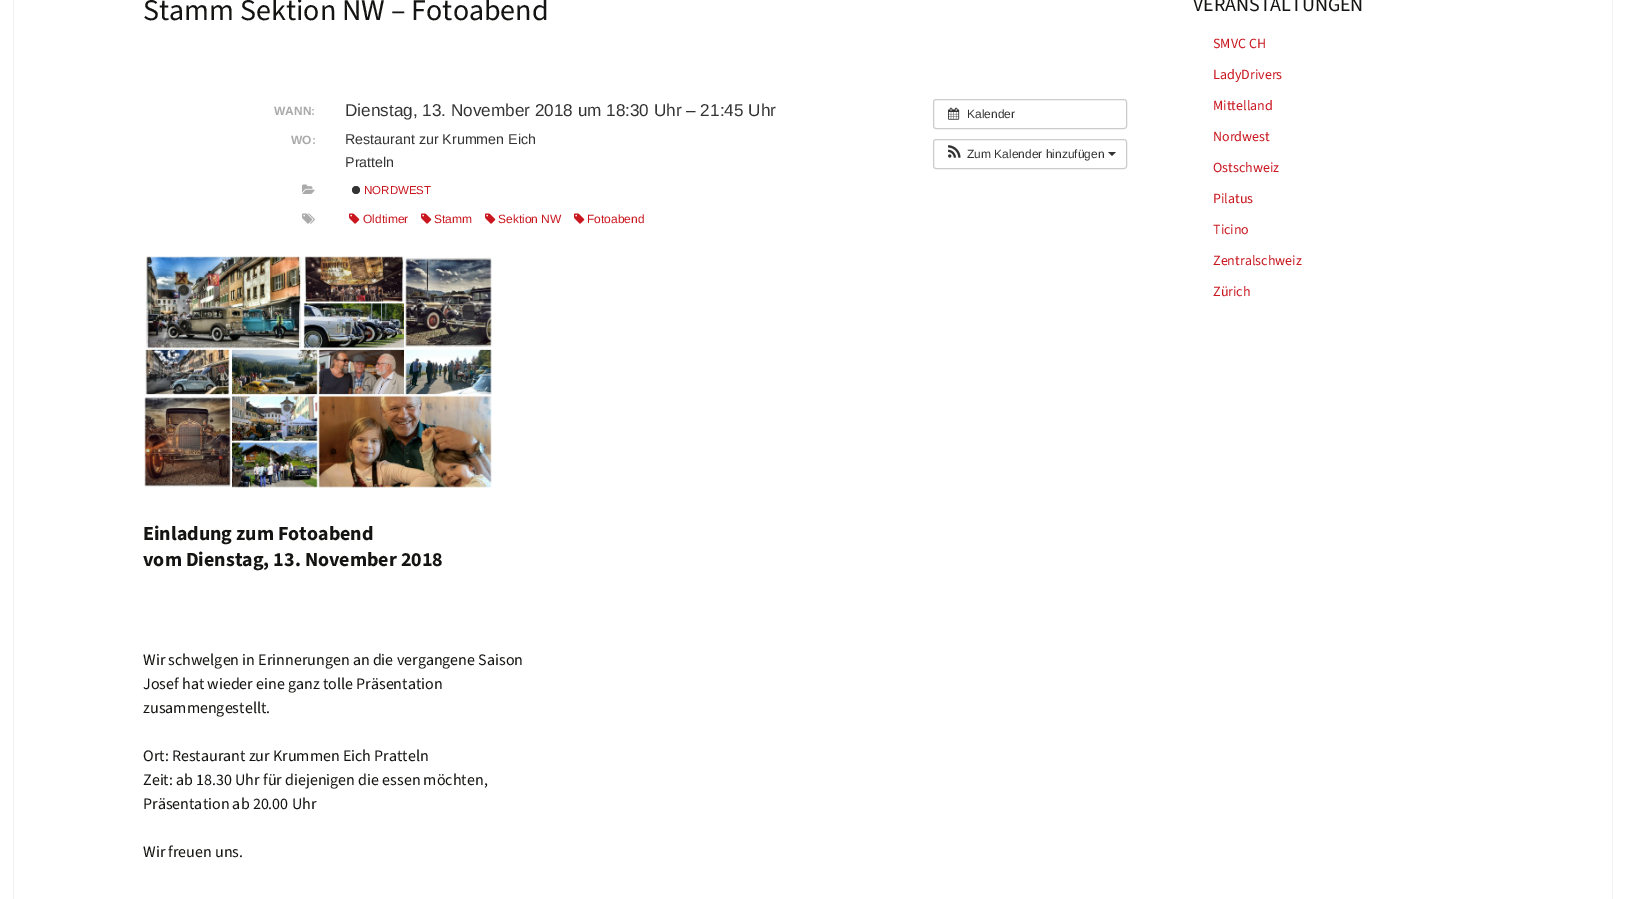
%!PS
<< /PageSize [1626 899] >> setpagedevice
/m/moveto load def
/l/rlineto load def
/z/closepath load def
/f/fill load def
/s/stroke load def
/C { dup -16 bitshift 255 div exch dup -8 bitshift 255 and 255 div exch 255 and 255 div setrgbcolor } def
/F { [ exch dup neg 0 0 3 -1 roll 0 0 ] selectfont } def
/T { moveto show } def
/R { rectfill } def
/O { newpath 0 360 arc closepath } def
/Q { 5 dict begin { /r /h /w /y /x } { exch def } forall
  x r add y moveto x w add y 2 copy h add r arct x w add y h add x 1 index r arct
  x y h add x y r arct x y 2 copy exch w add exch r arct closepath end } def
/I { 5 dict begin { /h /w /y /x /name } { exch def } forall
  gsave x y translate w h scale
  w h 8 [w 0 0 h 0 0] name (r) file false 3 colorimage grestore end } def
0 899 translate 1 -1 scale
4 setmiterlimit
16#FFFFFF C
0 0 1626 899 R
16#F2F2F2 C
1612 0 1 899 R
13 0 1 899 R
/SourceSans3-ExtraLight 30 F
16#141412 C
(Stamm Sektion NW – Fotoabend) 143 20 T
/LiberationSans-Bold 12 F
16#AAAAAA C
(WANN:) 274 115 T
/LiberationSans-Regular 17.15 F
16#333333 C
(Dienstag, 13. November 2018 um 18:30 Uhr – 21:45 Uhr) 345 116 T
/LiberationSans-Bold 12 F
16#AAAAAA C
(WO:) 291 144 T
/LiberationSans-Regular 14.25 F
16#333333 C
(Restaurant zur Krummen Eich) 345 144 T
(Pratteln) 345 167 T
(1.rgb) 302 184 13 10 I
356 190 4 O f
/LiberationSans-Regular 11.5 F
16#C9161F C
(NORDWEST) 364 194 T
(2.rgb) 302 213 13 11 I
(3.rgb) 349 213 11 11 I
/LiberationSans-Regular 12 F
(Oldtimer) 363 223 T
(3.rgb) 421 213 11 11 I
(Stamm) 434 223 T
(3.rgb) 485 213 11 11 I
(Sektion NW) 498 223 T
(3.rgb) 574 213 11 11 I
(Fotoabend) 587 223 T
16#CCCCCC C
933.5 99.5 193 29 2.5 Q s
(4.rgb) 948 107 12 13 I
16#333333 C
(Kalender) 967 118 T
16#CCCCCC C
933.5 139.5 193 29 2.5 Q s
(5.rgb) 948 145 13 13 I
16#333333 C
(Zum Kalender hinzufügen) 967 158 T
1108 152 m 8 0 l -4 4 l z f
(6.rgb) 144 256 348 232 I
/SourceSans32-ExtraLight 20 F
16#141412 C
(Einladung zum Fotoabend) 143 540 T
(vom Dienstag, 13. November 2018) 143 566 T
/SourceSans3-ExtraLight 16 F
(Wir schwelgen in Erinnerungen an die vergangene Saison) 143 665 T
(Josef hat wieder eine ganz tolle Präsentation) 143 689 T
(zusammengestellt.) 143 713 T
(Ort: Restaurant zur Krummen Eich Pratteln) 143 761 T
(Zeit: ab 18.30 Uhr für diejenigen die essen möchten,) 143 785 T
(Präsentation ab 20.00 Uhr) 143 809 T
(Wir freuen uns.) 143 857 T
/SourceSans3-ExtraLight 20 F
(VERANSTALTUNGEN) 1193 11 T
/SourceSans3-ExtraLight 14 F
16#C9161F C
(SMVC CH) 1213 48 T
(LadyDrivers) 1213 79 T
(Mittelland) 1213 110 T
(Nordwest) 1213 141 T
(Ostschweiz) 1213 172 T
(Pilatus) 1213 203 T
(Ticino) 1213 234 T
(Zentralschweiz) 1213 265 T
(Zürich) 1213 296 T
showpage
